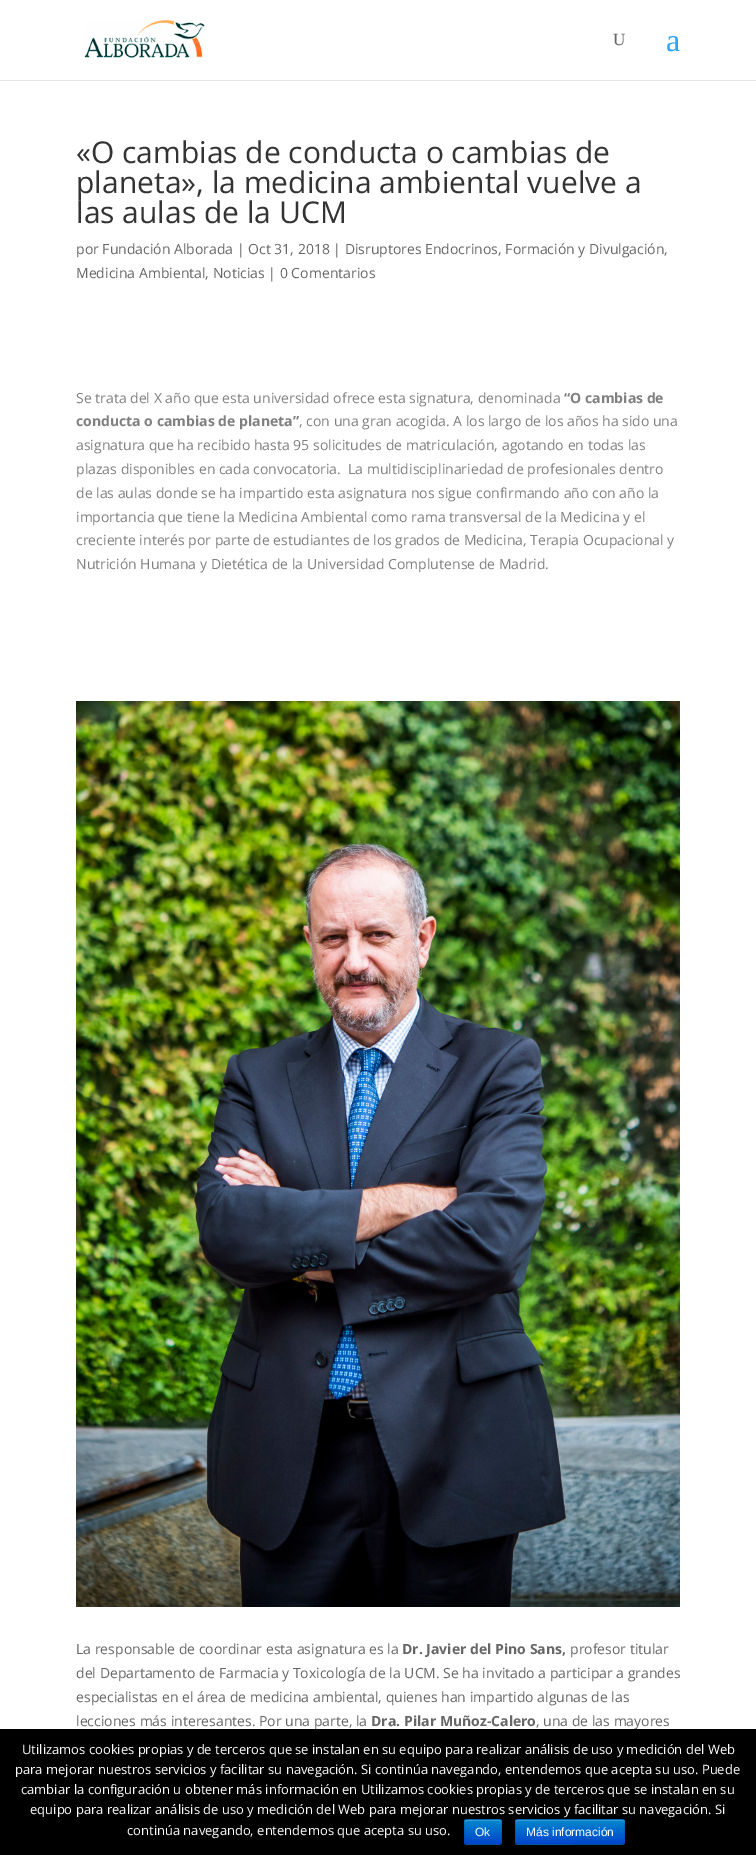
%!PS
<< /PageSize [756 1855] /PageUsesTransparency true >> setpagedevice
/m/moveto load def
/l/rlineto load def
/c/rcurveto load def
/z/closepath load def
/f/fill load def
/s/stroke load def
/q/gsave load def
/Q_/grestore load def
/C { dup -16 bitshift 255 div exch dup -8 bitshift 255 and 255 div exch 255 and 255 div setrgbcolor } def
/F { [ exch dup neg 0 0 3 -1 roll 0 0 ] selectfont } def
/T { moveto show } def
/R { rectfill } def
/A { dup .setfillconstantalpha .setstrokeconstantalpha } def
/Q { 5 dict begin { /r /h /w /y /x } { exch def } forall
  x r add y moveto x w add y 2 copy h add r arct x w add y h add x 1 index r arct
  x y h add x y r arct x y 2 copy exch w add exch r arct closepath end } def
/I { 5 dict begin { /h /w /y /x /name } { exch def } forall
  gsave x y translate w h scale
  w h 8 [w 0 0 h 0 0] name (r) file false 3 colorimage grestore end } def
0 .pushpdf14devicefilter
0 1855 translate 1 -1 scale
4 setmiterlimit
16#FFFFFF C
0 0 756 1855 R
16#E6E6E6 C
0 80 756 1 R
(1.rgb) 84 20 121 38 I
/LiberationSerif-Regular 17 F
16#666666 C
(U) 613 45 T
/LiberationSerif-Regular 32 F
16#2EA3F2 C
(a) 666 51 T
/OpenSans-Regular 30 F
16#333333 C
(«O cambias de conducta o cambias de) 76 163 T
(planeta», la medicina ambiental vuelve a) 76 193 T
(las aulas de la UCM) 76 223 T
/OpenSans-Regular 14 F
16#666666 C
(por Fundación Alborada | Oct 31, 2018 | Disruptores Endocrinos, Formación y Divulgación,) 76 254 T
(Medicina Ambiental, Noticias | 0 Comentarios) 76 278 T
16#808080 C
(Se trata del X año que esta universidad ofrece esta signatura, denominada) 76 403 T
/OpenSans-Bold 14 F
(“O cambias de) 564 403 T
(conducta o cambias de planeta”) 76 426 T
/OpenSans-Regular 14 F
(, con una gran acogida. A los largo de los años ha sido una) 299 426 T
(asignatura que ha recibido hasta 95 solicitudes de matriculación, agotando en todas las) 76 450 T
(plazas disponibles en cada convocatoria.  La multidisciplinariedad de profesionales dentro) 76 474 T
(de las aulas donde se ha impartido esta asignatura nos sigue confirmando año con año la) 76 498 T
(importancia que tiene la Medicina Ambiental como rama transversal de la Medicina y el) 76 522 T
(creciente interés por parte de estudiantes de los grados de Medicina, Terapia Ocupacional y) 76 545 T
(Nutrición Humana y Dietética de la Universidad Complutense de Madrid.) 76 569 T
(2.rgb) 76 701 604 906 I
16#666666 C
(La responsable de coordinar esta asignatura es la) 76 1654 T
/OpenSans-Bold 14 F
(Dr. Javier del Pino Sans,) 402 1654 T
/OpenSans-Regular 14 F
(profesor titular) 570 1654 T
(del Departamento de Farmacia y Toxicología de la UCM. Se ha invitado a participar a grandes) 76 1678 T
(especialistas en el área de medicina ambiental, quienes han impartido algunas de las) 76 1702 T
(lecciones más interesantes. Por una parte, la) 76 1726 T
/OpenSans-Bold 14 F
(Dra. Pilar Muñoz-Calero) 371 1726 T
/OpenSans-Regular 14 F
(, una de las mayores) 536 1726 T
16#000000 C
0 1729 756 126 R
/OpenSans-Regular 13 F
16#FFFFFF C
(Utilizamos cookies propias y de terceros que se instalan en su equipo para realizar análisis de uso y medición del Web) 22 1754 T
(para mejorar nuestros servicios y facilitar su navegación. Si continúa navegando, entendemos que acepta su uso. Puede) 15 1774 T
(cambiar la configuración u obtener más información en Utilizamos cookies propias y de terceros que se instalan en su) 21 1794 T
(equipo para realizar análisis de uso y medición del Web para mejorar nuestros servicios y facilitar su navegación. Si) 30 1814 T
(continúa navegando, entendemos que acepta su uso.) 127 1835 T
16#006DCC C
464 1819 38 26 3 Q f
q
464 1819 38 26 3 Q clip newpath
q 464 1820 m 38 0 l 0 24 l -38 0 l z clip newpath
<< /ShadingType 2 /ColorSpace /DeviceRGB /Coords [483 1820 483 1844] /Extend [true true] /Function << /FunctionType 2 /Domain [0 1] /C0 [0 .533 .8] /C1 [0 .267 .8] /N 1 >> >> shfill Q_
Q_
0.2 A
16#FFFFFF C
467 1821 m 32 0 l 1 0 2 1 2 2 c 0 -4.5 -3.5 -3 -7.5 -3 c -21 0 l -4 0 -7.5 -1.5 -7.5 3 c 0 -1 1 -2 2 -2 c z f
0.25 A
16#000000 C
501 1844 m -.5 0 -1.5 .5 -2 .5 c -32 0 l -.5 0 -1.5 -.5 -2 -.5 c s
0.1 A
465 1844 m 0 -.5 -.5 -1.5 -.5 -2 c 0 -20 l 0 -.5 .5 -1.5 .5 -2 c .5 0 1.5 -.5 2 -.5 c 32 0 l .5 0 1.5 .5 2 .5 c 0 .5 .5 1.5 .5 2 c 0 20 l 0 .5 -.5 1.5 -.5 2 c s
/LiberationSans-Regular 12 F
1 A
16#FFFFFF C
(Ok) 475 1836 T
16#006DCC C
515 1819 110 26 3 Q f
q
515 1819 110 26 3 Q clip newpath
q 515 1820 m 110 0 l 0 24 l -110 0 l z clip newpath
<< /ShadingType 2 /ColorSpace /DeviceRGB /Coords [570 1820 570 1844] /Extend [true true] /Function << /FunctionType 2 /Domain [0 1] /C0 [0 .533 .8] /C1 [0 .267 .8] /N 1 >> >> shfill Q_
Q_
0.2 A
16#FFFFFF C
518 1821 m 104 0 l 1 0 2 1 2 2 c 0 -1 0 -3 -2 -3 c -104 0 l -2 0 -2 2 -2 3 c 0 -1 1 -2 2 -2 c z f
0.25 A
16#000000 C
624 1844 m -2 .5 l -17.5 0 l -8.5 0 -86 1 -88 -.5 c -.5 0 l s
0.1 A
516 1844 m -1.5 -2 -.5 -9.5 -.5 -12 c 0 -17 -1.5 -12.5 20 -12.5 c 69 0 l 21.5 0 20 -4.5 20 12.5 c 0 2.5 1 10 -.5 12 c s
1 A
16#FFFFFF C
(Más información) 526 1836 T
.poppdf14devicefilter showpage
